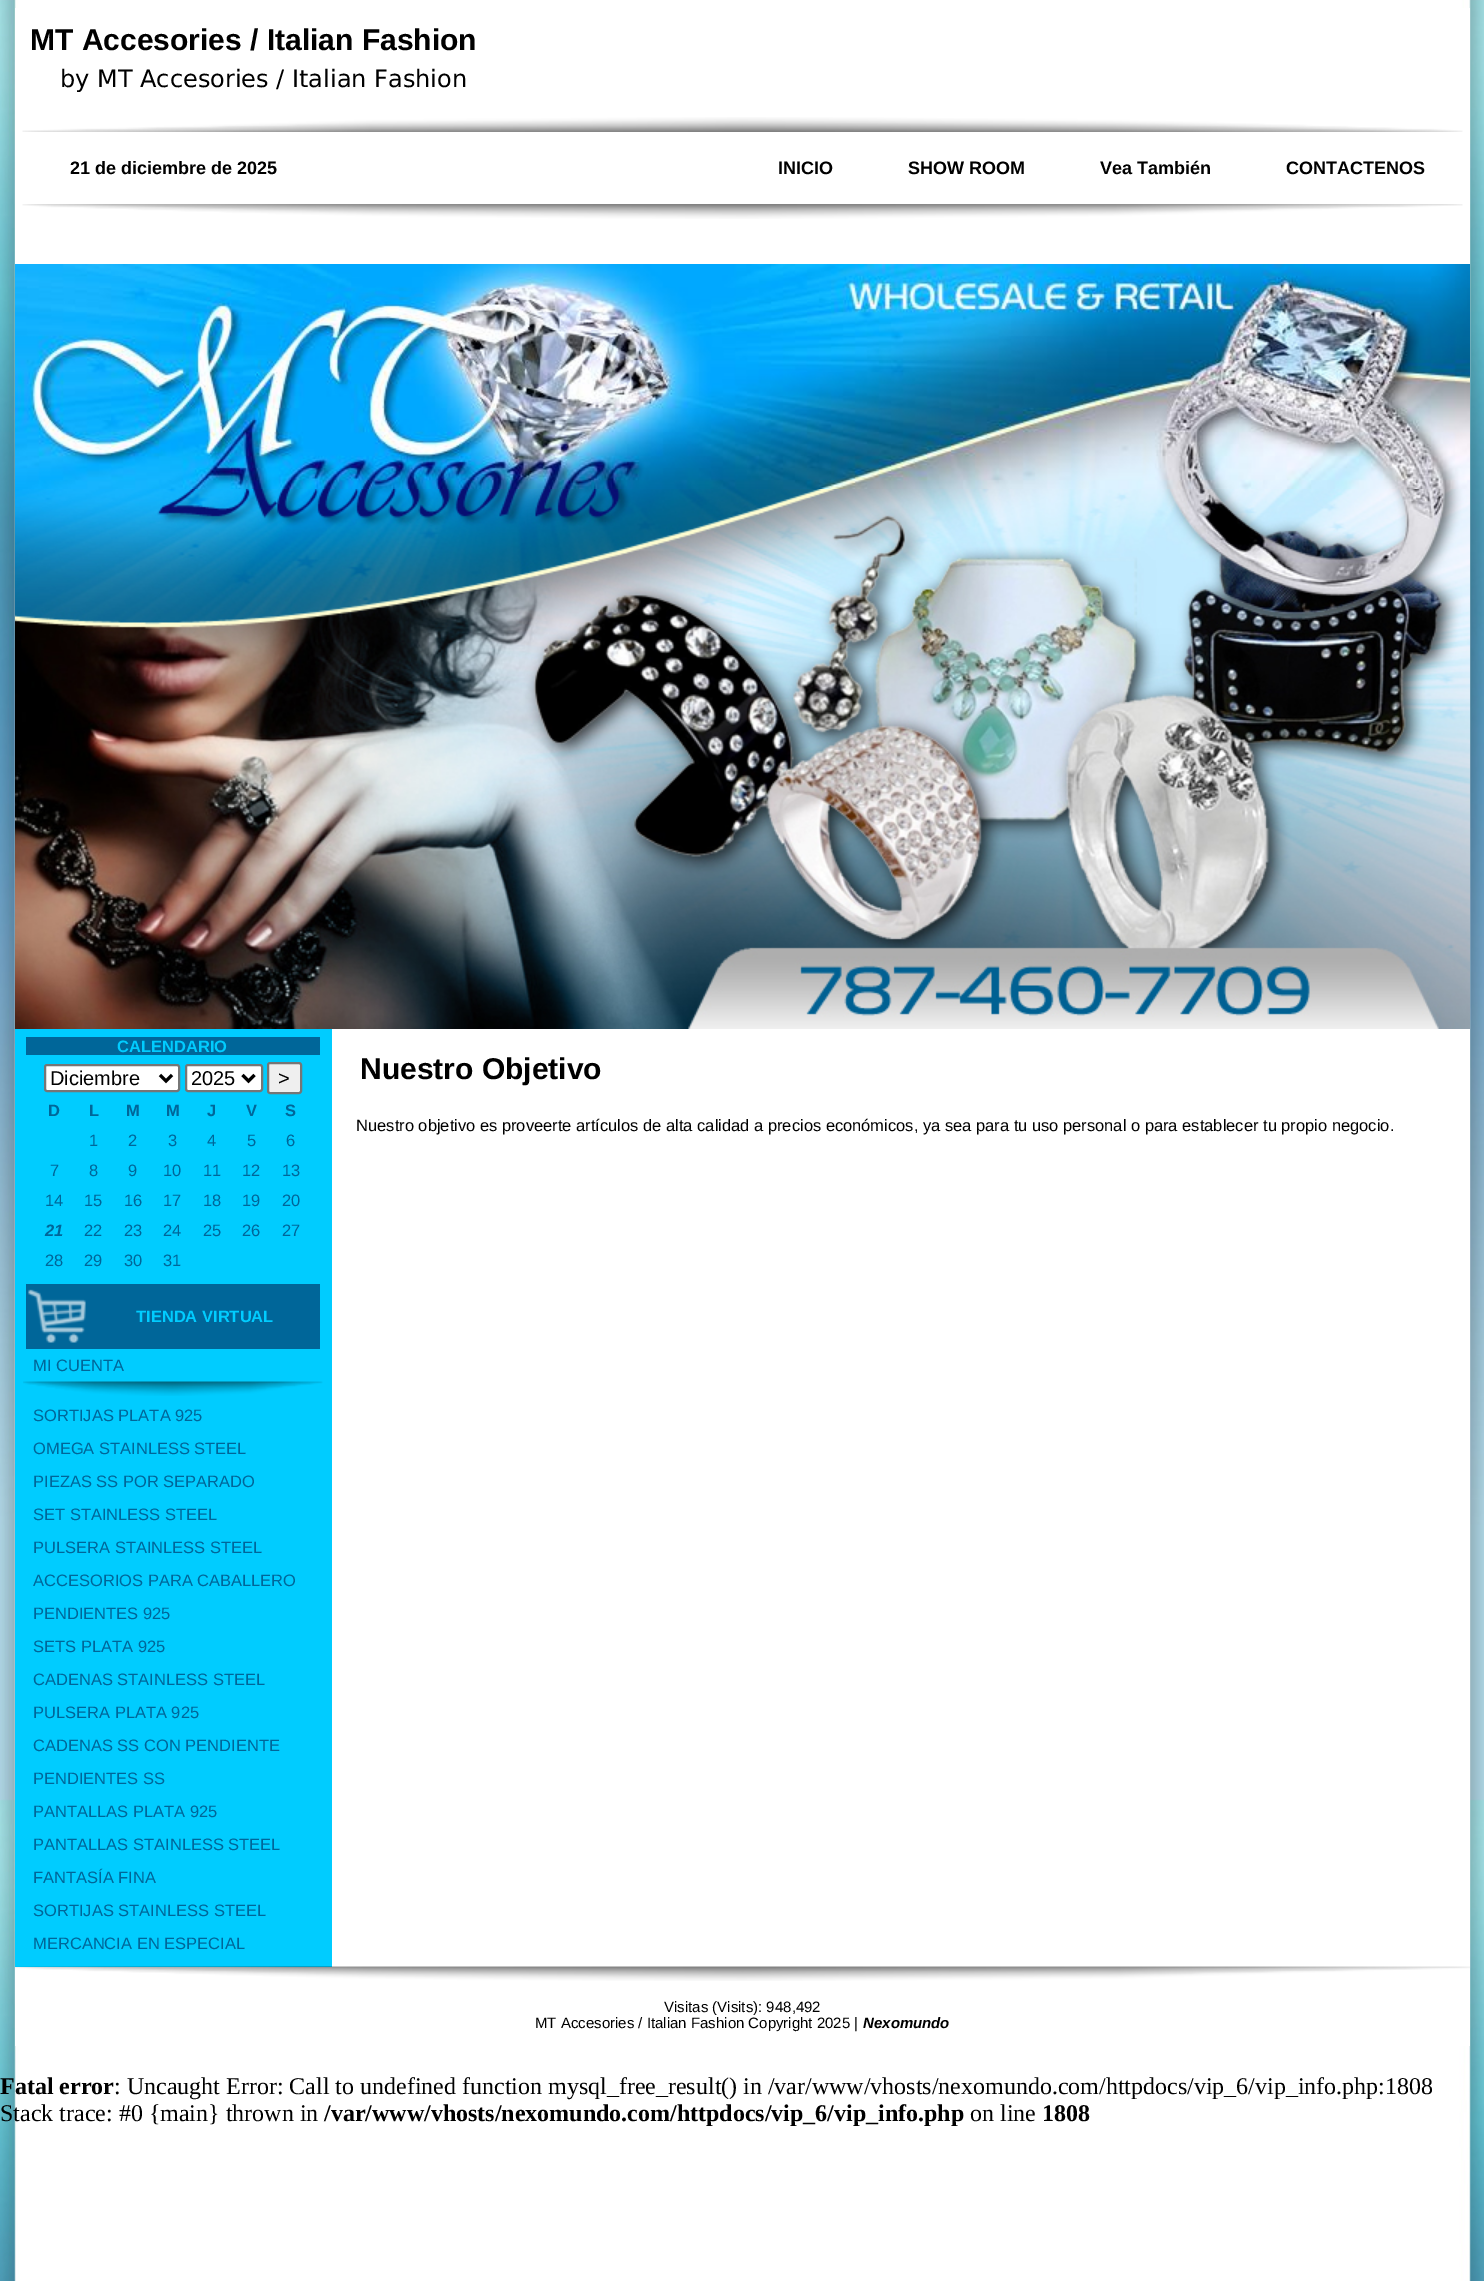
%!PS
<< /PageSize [1484 2281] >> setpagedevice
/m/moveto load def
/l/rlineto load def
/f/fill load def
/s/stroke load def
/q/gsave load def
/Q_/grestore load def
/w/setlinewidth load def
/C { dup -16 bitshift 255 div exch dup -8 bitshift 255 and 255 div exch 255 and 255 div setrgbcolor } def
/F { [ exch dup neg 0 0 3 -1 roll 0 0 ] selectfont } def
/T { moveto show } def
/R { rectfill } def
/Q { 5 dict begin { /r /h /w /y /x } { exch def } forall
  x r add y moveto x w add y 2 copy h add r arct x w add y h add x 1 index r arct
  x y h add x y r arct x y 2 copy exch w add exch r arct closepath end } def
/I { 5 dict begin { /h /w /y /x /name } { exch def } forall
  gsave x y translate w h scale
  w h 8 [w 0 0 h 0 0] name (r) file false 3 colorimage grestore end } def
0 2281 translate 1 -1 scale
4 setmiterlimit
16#FFFFFF C
0 0 1484 2281 R
(1.rgb) 0 0 1484 2281 I
15 8 1455 2038 R
/LiberationSans-Bold 30 F
16#000000 C
(MT Accesories / Italian Fashion) 30 50 T
/DejaVuSans-Regular 24 F
(by MT Accesories / Italian Fashion) 60 87 T
(2.rgb) 22 117 1441 15 I
/LiberationSans-Bold 18 F
(21 de diciembre de 2025) 70 174 T
(INICIO) 778 174 T
(SHOW ROOM) 908 174 T
(Vea También) 1100 174 T
(CONTACTENOS) 1286 174 T
(3.rgb) 22 204 1441 15 I
(4.rgb) 15 264 1455 225 I
(5.rgb) 15 489 1455 540 I
16#00CCFF C
15 1029 317 938 R
16#006699 C
26 1037 294 18 R
/LiberationSans-Bold 16.5 F
16#00CCFF C
(CALENDARIO) 117 1052 T
16#FFFFFF C
45 1065 134 26 2 Q q f Q_
16#767676 C
2 w
s
16#000000 C
3 w
160 1075 m 6 6 l 6 -6 l s
/LiberationSans-Regular 20 F
(Diciembre) 50 1085 T
16#FFFFFF C
186 1065 76 26 2 Q q f Q_
16#767676 C
2 w
s
16#000000 C
3 w
242.5 1075 m 6 6 l 6 -6 l s
(2025) 191 1085 T
16#EFEFEF C
268 1063 33 30 2 Q q f Q_
16#767676 C
2 w
s
16#000000 C
(>) 278 1085 T
/LiberationSans-Bold 16.5 F
16#006699 C
(D) 48 1116 T
(L) 89 1116 T
(M) 126 1116 T
(M) 166 1116 T
(J) 207 1116 T
(V) 246 1116 T
(S) 285 1116 T
/LiberationSans-Regular 16.5 F
(1) 89 1146 T
(2) 128 1146 T
(3) 168 1146 T
(4) 207 1146 T
(5) 247 1146 T
(6) 286 1146 T
(7) 50 1176 T
(8) 89 1176 T
(9) 128 1176 T
(10) 163 1176 T
(11) 203 1176 T
(12) 242 1176 T
(13) 282 1176 T
(14) 45 1206 T
(15) 84 1206 T
(16) 124 1206 T
(17) 163 1206 T
(18) 203 1206 T
(19) 242 1206 T
(20) 282 1206 T
/LiberationSans-BoldItalic 16.5 F
(21) 45 1236 T
/LiberationSans-Regular 16.5 F
(22) 84 1236 T
(23) 124 1236 T
(24) 163 1236 T
(25) 203 1236 T
(26) 242 1236 T
(27) 282 1236 T
(28) 45 1266 T
(29) 84 1266 T
(30) 124 1266 T
(31) 163 1266 T
26 1284 294 65 R
(6.rgb) 28 1289 58 54 I
/LiberationSans-Bold 16.5 F
16#00CCFF C
(TIENDA VIRTUAL) 136 1322 T
/LiberationSans-Regular 16.5 F
16#006699 C
(MI CUENTA) 33 1371 T
(7.rgb) 23 1381 300 15 I
(SORTIJAS PLATA 925) 33 1421 T
(OMEGA STAINLESS STEEL) 33 1454 T
(PIEZAS SS POR SEPARADO) 33 1487 T
(SET STAINLESS STEEL) 33 1520 T
(PULSERA STAINLESS STEEL) 33 1553 T
(ACCESORIOS PARA CABALLERO) 33 1586 T
(PENDIENTES 925) 33 1619 T
(SETS PLATA 925) 33 1652 T
(CADENAS STAINLESS STEEL) 33 1685 T
(PULSERA PLATA 925) 33 1718 T
(CADENAS SS CON PENDIENTE) 33 1751 T
(PENDIENTES SS) 33 1784 T
(PANTALLAS PLATA 925) 33 1817 T
(PANTALLAS STAINLESS STEEL) 33 1850 T
(FANTASÍA FINA) 33 1883 T
(SORTIJAS STAINLESS STEEL) 33 1916 T
(MERCANCIA EN ESPECIAL) 33 1949 T
/LiberationSans-Bold 30 F
16#000000 C
(Nuestro Objetivo) 360 1079 T
/LiberationSans-Regular 16.5 F
(Nuestro objetivo es proveerte artículos de alta calidad a precios económicos, ya sea para tu uso personal o para establecer tu propio negocio.) 356 1131 T
(8.rgb) 15 1966 1455 15 I
/LiberationSans-Regular 15 F
(Visitas \(Visits\): 948,492) 664 2012 T
(MT Accesories / Italian Fashion Copyright 2025 |) 535 2028 T
/LiberationSans-BoldItalic 15 F
(Nexomundo) 863 2028 T
/LiberationSerif-Bold 24 F
(Fatal error) 0 2094 T
/LiberationSerif-Regular 24 F
(: Uncaught Error: Call to undefined function mysql_free_result\(\) in /var/www/vhosts/nexomundo.com/httpdocs/vip_6/vip_info.php:1808) 114 2094 T
(Stack trace: #0 {main} thrown in) 0 2121 T
/LiberationSerif-Bold 24 F
(/var/www/vhosts/nexomundo.com/httpdocs/vip_6/vip_info.php) 324 2121 T
/LiberationSerif-Regular 24 F
(on line) 970 2121 T
/LiberationSerif-Bold 24 F
(1808) 1042 2121 T
showpage
